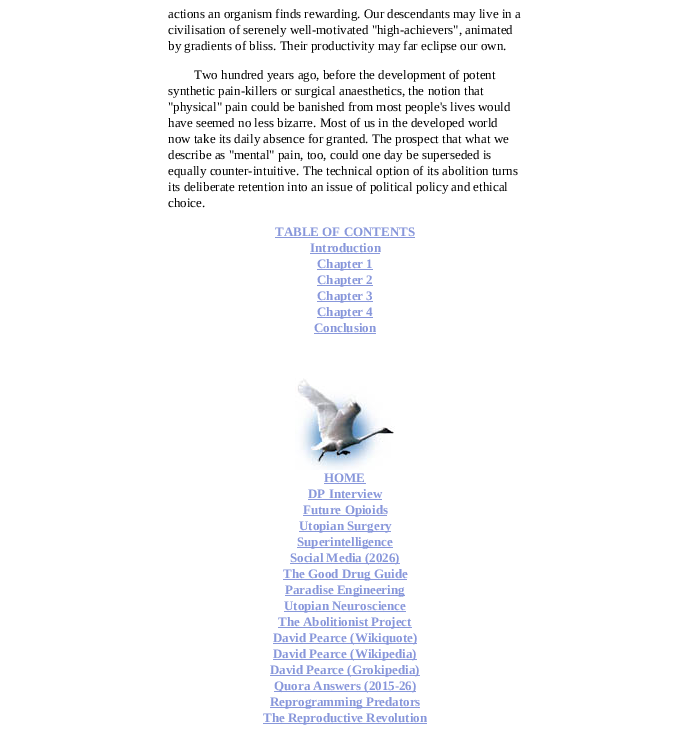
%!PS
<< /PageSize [690 729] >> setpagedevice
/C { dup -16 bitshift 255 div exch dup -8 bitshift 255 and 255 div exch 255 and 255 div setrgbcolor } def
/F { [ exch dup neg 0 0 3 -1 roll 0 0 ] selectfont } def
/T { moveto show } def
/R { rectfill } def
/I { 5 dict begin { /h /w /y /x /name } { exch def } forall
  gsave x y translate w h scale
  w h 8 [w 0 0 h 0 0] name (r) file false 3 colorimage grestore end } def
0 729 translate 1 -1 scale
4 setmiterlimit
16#FFFFFF C
0 0 690 729 R
/LiberationSerif-Regular 13 F
16#000000 C
(actions an organism finds rewarding. Our descendants may live in a) 168 18 T
(civilisation of serenely well-motivated "high-achievers", animated) 168 34 T
(by gradients of bliss. Their productivity may far eclipse our own.) 168 50 T
(Two hundred years ago, before the development of potent) 194 79 T
(synthetic pain-killers or surgical anaesthetics, the notion that) 168 95 T
("physical" pain could be banished from most people's lives would) 168 111 T
(have seemed no less bizarre. Most of us in the developed world) 168 127 T
(now take its daily absence for granted. The prospect that what we) 168 143 T
(describe as "mental" pain, too, could one day be superseded is) 168 159 T
(equally counter-intuitive. The technical option of its abolition turns) 168 175 T
(its deliberate retention into an issue of political policy and ethical) 168 191 T
(choice.) 168 207 T
/LiberationSerif-Bold 13 F
16#8897DB C
(TABLE OF CONTENTS) 275 236 T
275 237 140 1 R
(Introduction) 310 252 T
310 253 70 1 R
317 269 56 1 R
(Chapter 1) 317 268 T
317 285 56 1 R
(Chapter 2) 317 284 T
317 301 56 1 R
(Chapter 3) 317 300 T
317 317 56 1 R
(Chapter 4) 317 316 T
(Conclusion) 314 332 T
314 333 62 1 R
(1.rgb) 295 378 100 92 I
(HOME) 324 482 T
324 483 42 1 R
(DP Interview) 308 498 T
308 499 74 1 R
303 515 84 1 R
(Future Opioids) 303 514 T
299 531 92 1 R
(Utopian Surgery) 299 530 T
297 547 96 1 R
(Superintelligence) 297 546 T
290 563 110 1 R
(Social Media \(2026\)) 290 562 T
283 579 124 1 R
(The Good Drug Guide) 283 578 T
285 595 120 1 R
(Paradise Engineering) 285 594 T
284 611 122 1 R
(Utopian Neuroscience) 284 610 T
278 627 134 1 R
(The Abolitionist Project) 278 626 T
273 643 144 1 R
(David Pearce \(Wikiquote\)) 273 642 T
273 659 144 1 R
(David Pearce \(Wikipedia\)) 273 658 T
270 675 150 1 R
(David Pearce \(Grokipedia\)) 270 674 T
274 691 142 1 R
(Quora Answers \(2015-26\)) 274 690 T
270 707 150 1 R
(Reprogramming Predators) 270 706 T
263 723 164 1 R
(The Reproductive Revolution) 263 722 T
showpage
